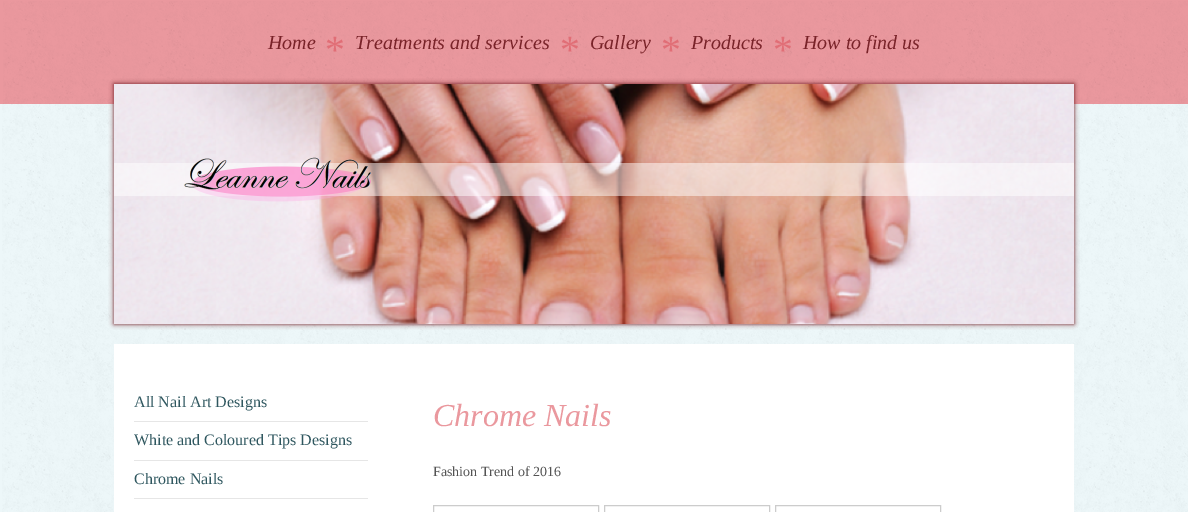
%!PS
<< /PageSize [1188 512] /PageUsesTransparency true >> setpagedevice
/C { dup -16 bitshift 255 div exch dup -8 bitshift 255 and 255 div exch 255 and 255 div setrgbcolor } def
/F { [ exch dup neg 0 0 3 -1 roll 0 0 ] selectfont } def
/T { moveto show } def
/R { rectfill } def
/A { dup .setfillconstantalpha .setstrokeconstantalpha } def
/Q { 5 dict begin { /r /h /w /y /x } { exch def } forall
  x r add y moveto x w add y 2 copy h add r arct x w add y h add x 1 index r arct
  x y h add x y r arct x y 2 copy exch w add exch r arct closepath end } def
/S { 12 dict begin { /a /b /q /h /w /y /x } { exch def } forall gsave /was 0 def
  9 -2 -9 { dup b mul 4 div /e exch def 1 sub .425 mul 2.718 exch exp 1 add a .99 .min exch div /now exch def
    1 1 now sub 1 was sub div sub A /was now def
    w h .min e 2 mul add 0 gt { x e sub y e sub w e 2 mul add h e 2 mul add
      q e add b .6 mul add w h .min 2 div e add .min 0 .max Q fill } if } for grestore end } def
/I { 5 dict begin { /h /w /y /x /name } { exch def } forall
  gsave x y translate w h scale
  w h 8 [w 0 0 h 0 0] name (r) file false 3 colorimage grestore end } def
0 .pushpdf14devicefilter
0 512 translate 1 -1 scale
4 setmiterlimit
16#EDF7F9 C
0 0 1188 512 R
(1.rgb) 2 104 1186 408 I
16#EA989E C
0 0 1188 104 R
(2.rgb) 3 1 1185 103 I
/LiberationSerif-Italic 20 F
16#792329 C
(Home) 268 49 T
/LiberationSerif-Italic 40 F
16#E16E76 C
(*) 323 63 T
/LiberationSerif-Italic 20 F
16#792329 C
(Treatments and services) 355 49 T
/LiberationSerif-Italic 40 F
16#E16E76 C
(*) 558 63 T
/LiberationSerif-Italic 20 F
16#792329 C
(Gallery) 590 49 T
/LiberationSerif-Italic 40 F
16#E16E76 C
(*) 659 63 T
/LiberationSerif-Italic 20 F
16#792329 C
(Products) 691 49 T
/LiberationSerif-Italic 40 F
16#E16E76 C
(*) 771 63 T
/LiberationSerif-Italic 20 F
16#792329 C
(How to find us) 803 49 T
16#6D161D C
114 84 960 240 0 2.5 1 S
(3.rgb) 114 84 960 240 I
0.5 A
16#FFFFFF C
114 163 960 33 R
1 A
(4.rgb) 184 157 187 45 I
114 344 960 168 R
16#E6E6E6 C
134 421 234 1 R
/LiberationSerif-Regular 16 F
16#2F575F C
(All Nail Art Designs) 134 407 T
16#E6E6E6 C
134 460 234 1 R
16#2F575F C
(White and Coloured Tips Designs) 134 445 T
16#E6E6E6 C
134 498 234 1 R
16#2F575F C
(Chrome Nails) 134 484 T
/LiberationSerif-Italic 32 F
16#EA989E C
(Chrome Nails) 433 426 T
/LiberationSerif-Regular 14 F
16#535353 C
(Fashion Trend of 2016) 433 476 T
16#CCCCCC C
433.5 505.5 165 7 rectstroke
604.5 505.5 165 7 rectstroke
775.5 505.5 165 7 rectstroke
.poppdf14devicefilter showpage
